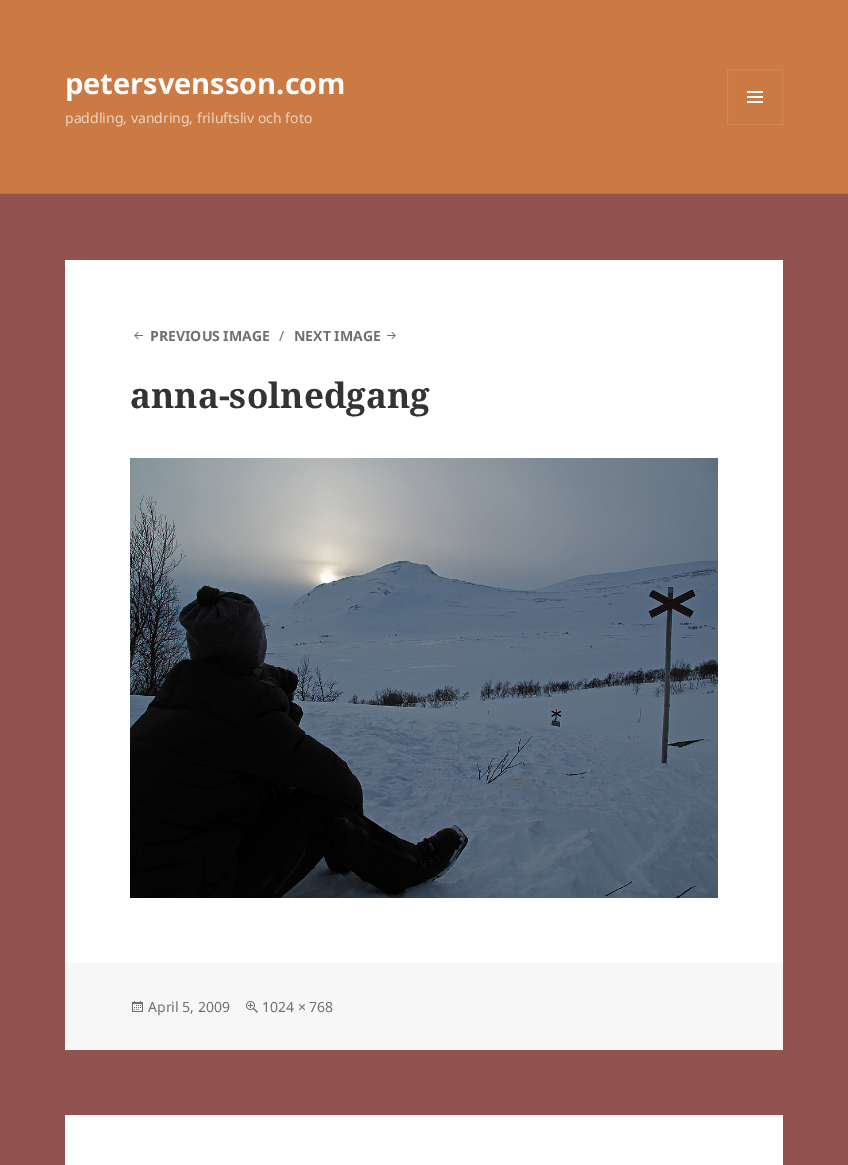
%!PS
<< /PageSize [848 1165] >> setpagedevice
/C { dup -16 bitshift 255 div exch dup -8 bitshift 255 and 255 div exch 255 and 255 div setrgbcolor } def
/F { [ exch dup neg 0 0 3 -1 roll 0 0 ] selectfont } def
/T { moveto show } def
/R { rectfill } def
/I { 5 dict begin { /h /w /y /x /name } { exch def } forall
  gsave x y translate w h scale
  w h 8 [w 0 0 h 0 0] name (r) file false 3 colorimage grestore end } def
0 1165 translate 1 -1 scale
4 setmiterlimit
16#925250 C
0 0 848 1165 R
16#CA7A42 C
0 0 848 193 R
16#BB7341 C
0 193 848 1 R
/NotoSans-Bold 29 F
16#FCFCFC C
(petersvensson.com) 65 94 T
16#CF8755 C
727.5 69.5 55 55 rectstroke
(1.rgb) 747 91 16 12 I
/NotoSans-Regular 14 F
16#EDD5C4 C
(paddling, vandring, friluftsliv och foto) 65 123 T
16#FFFFFF C
65 260 718 703 R
(2.rgb) 134 331 9 9 I
/NotoSans-Bold 14 F
16#707070 C
(PREVIOUS IMAGE) 150 341 T
/NotoSans-Regular 14 F
(∕) 279 341 T
/NotoSans-Bold 14 F
(NEXT IMAGE) 294 341 T
(3.rgb) 387 331 9 9 I
/NotoSerif-Bold 35 F
16#333333 C
(anna-solnedgang) 130 408 T
(4.rgb) 130 458 588 440 I
16#F7F7F7 C
65 963 718 87 R
(5.rgb) 132 1001 11 11 I
/NotoSans-Regular 14 F
16#707070 C
(April 5, 2009) 148 1012 T
(6.rgb) 246 1001 12 12 I
(1024 × 768) 262 1012 T
16#FFFFFF C
65 1115 718 50 R
showpage
